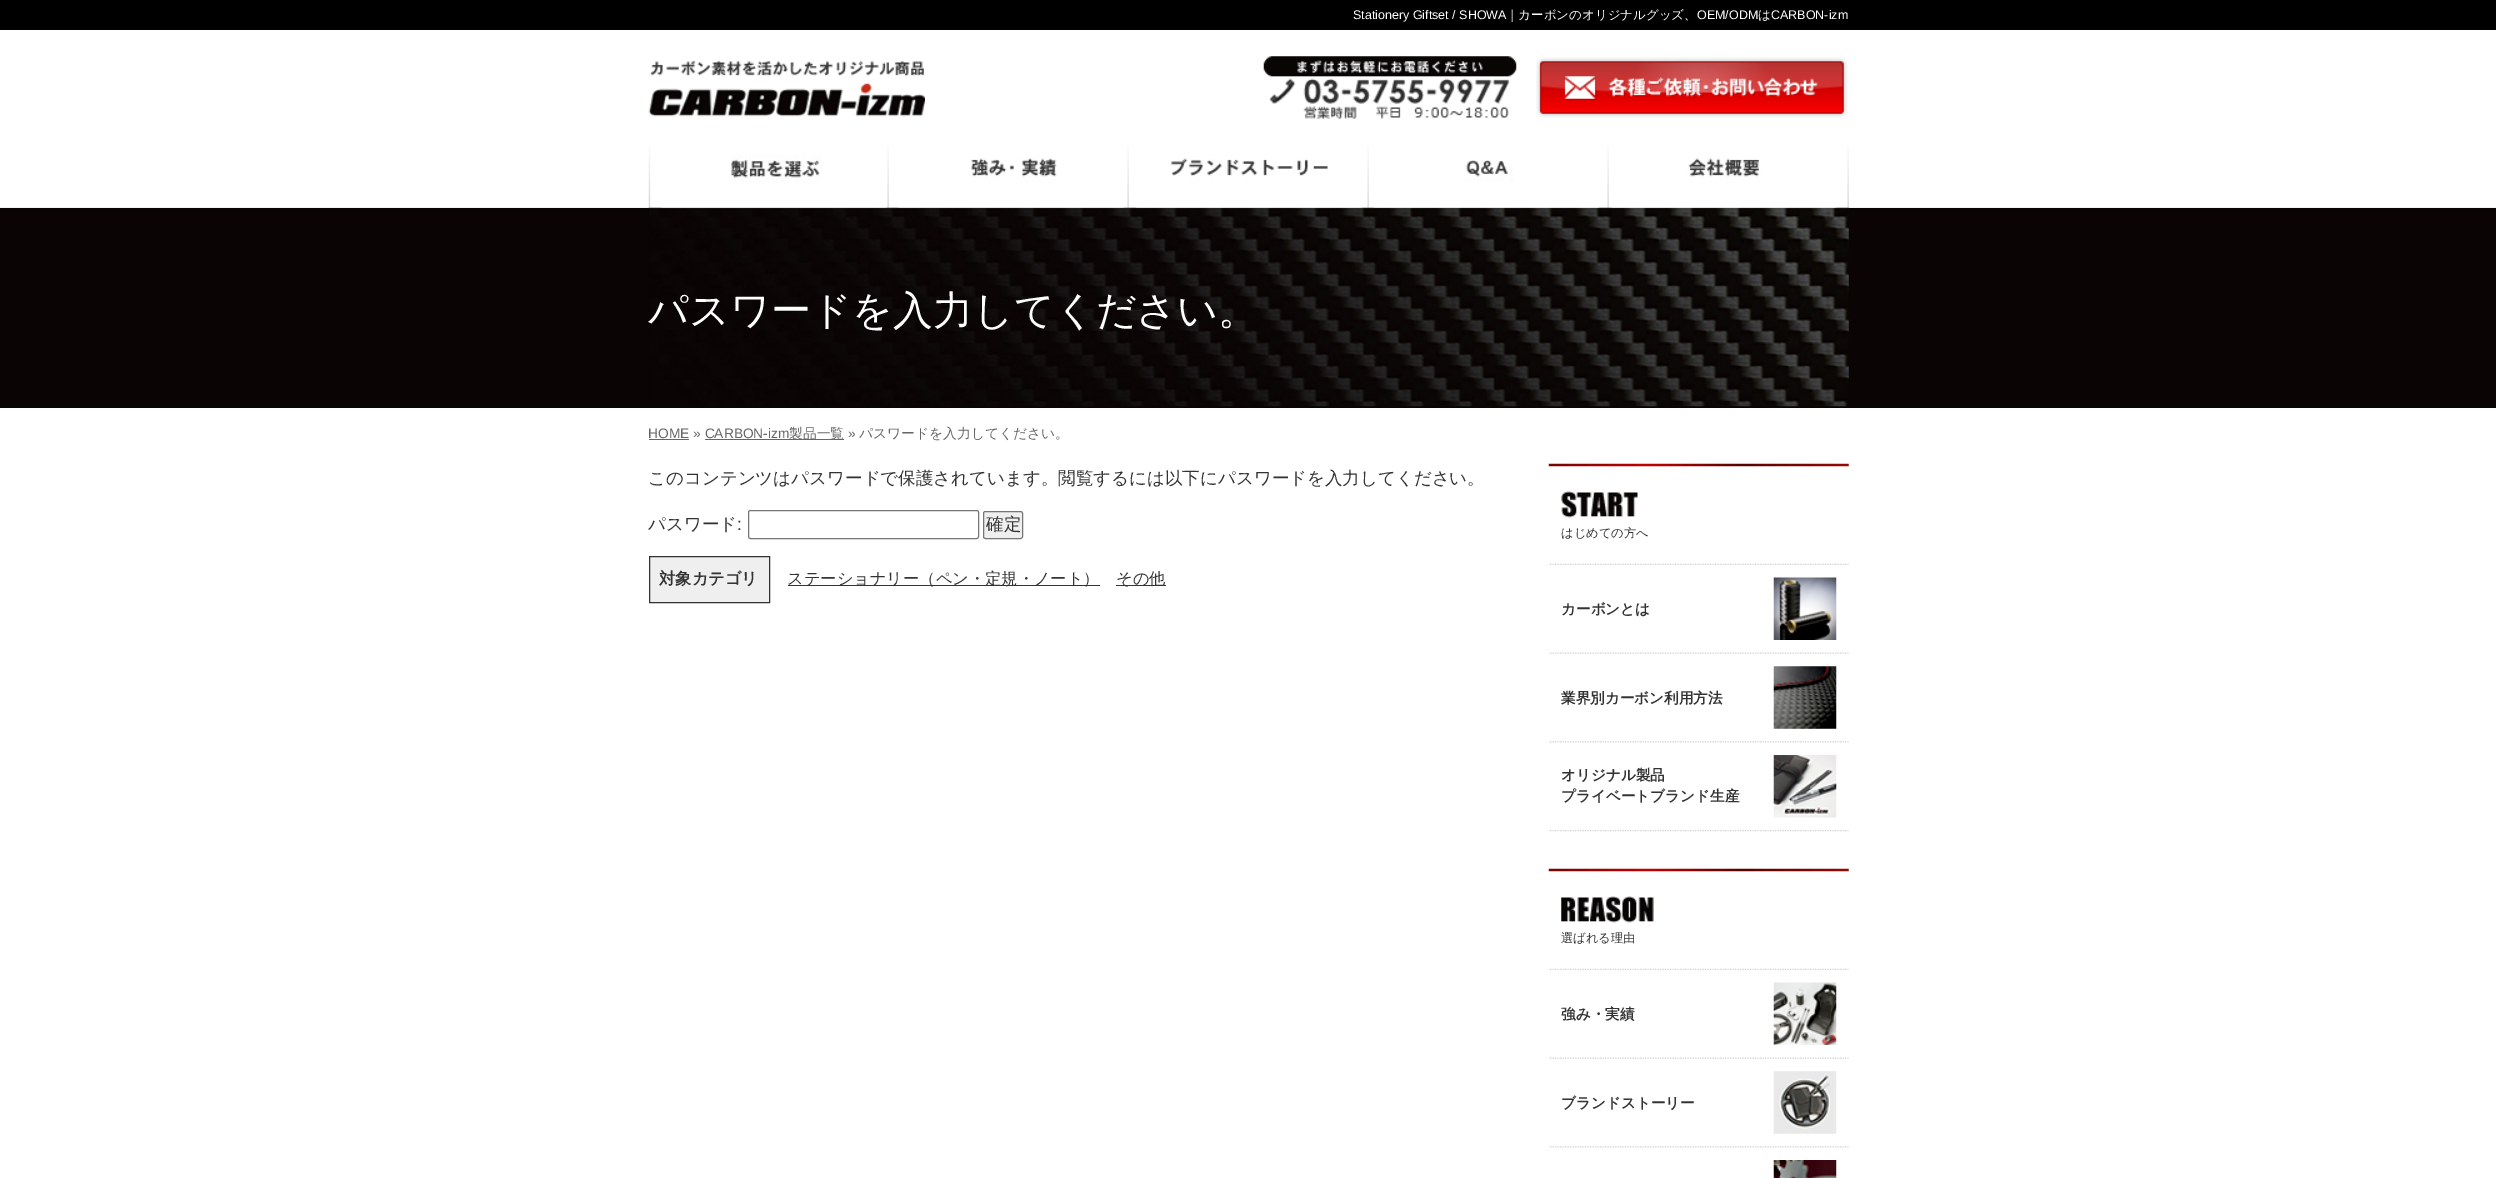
%!PS
<< /PageSize [2496 1178] >> setpagedevice
/m/moveto load def
/l/rlineto load def
/z/closepath load def
/f/fill load def
/s/stroke load def
/q/gsave load def
/Q_/grestore load def
/C { dup -16 bitshift 255 div exch dup -8 bitshift 255 and 255 div exch 255 and 255 div setrgbcolor } def
/F { [ exch dup neg 0 0 3 -1 roll 0 0 ] selectfont } def
/T { moveto show } def
/R { rectfill } def
/Q { 5 dict begin { /r /h /w /y /x } { exch def } forall
  x r add y moveto x w add y 2 copy h add r arct x w add y h add x 1 index r arct
  x y h add x y r arct x y 2 copy exch w add exch r arct closepath end } def
/I { 5 dict begin { /h /w /y /x /name } { exch def } forall
  gsave x y translate w h scale
  w h 8 [w 0 0 h 0 0] name (r) file false 3 colorimage grestore end } def
0 1178 translate 1 -1 scale
4 setmiterlimit
16#FFFFFF C
0 0 2496 1178 R
16#000000 C
0 0 2496 30 R
/LiberationSans-Regular 12.5 F
16#FFFFFF C
(Stationery Giftset / SHOWA) 1353 19 T
/WenQuanYiZenHei-Medium 12.5 F
(｜カーボンのオリジナルグッズ、) 1506 19 T
/LiberationSans-Regular 12.5 F
(OEM/ODM) 1697 19 T
/WenQuanYiZenHei-Medium 12.5 F
(は) 1758 19 T
/LiberationSans-Regular 12.5 F
(CARBON-izm) 1771 19 T
(1.rgb) 648 60 277 57 I
(2.rgb) 1263 56 254 63 I
(3.rgb) 1536 57 312 61 I
16#0A0404 C
0 208 2496 200 R
(11.rgb) 648 207 1201 200 I
(4.rgb) 0 207 2496 4 I
(5.rgb) 648 146 1201 62 I
(6.rgb) 661 154 226 54 I
(7.rgb) 898 158 226 50 I
(8.rgb) 1136 158 226 50 I
(9.rgb) 1373 160 226 48 I
(10.rgb) 1611 158 226 50 I
/WenQuanYiZenHei-Medium 40 F
16#FFFFFF C
(パスワードを入力してください。) 648 324 T
/LiberationSans-Regular 13.75 F
16#666666 C
(HOME » CARBON-izm) 648 438 T
649 439 40 1 R
705 439 139 1 R
/WenQuanYiZenHei-Medium 13.75 F
(製品一覧) 789 438 T
/LiberationSans-Regular 13.75 F
(») 848 438 T
/WenQuanYiZenHei-Medium 13.75 F
(パスワードを入力してください。) 859 438 T
/WenQuanYiZenHei-Medium 17.5 F
16#333333 C
(このコンテンツはパスワードで保護されています。閲覧するには以下にパスワードを入力してください。) 648 484 T
(パスワード) 648 530 T
/LiberationSans-Regular 17.5 F
(:) 737 530 T
16#767676 C
748.5 510.5 230 28 2 Q s
16#EFEFEF C
983.5 511.5 39 27 2 Q q f Q_
16#767676 C
s
/WenQuanYiZenHei-Medium 17.5 F
16#333333 C
(確定) 986 530 T
16#EFEFEF C
649.5 556.5 m 120 0 l 0 46 l -120 0 l z q f Q_
16#333333 C
s
/WenQuanYiZenHei-Bold 16.25 F
(対象カテゴリ) 659 584 T
788 585 312 1 R
/WenQuanYiZenHei-Medium 16.25 F
(ステーショナリー（ペン・定規・ノート）) 787 584 T
1116 585 50 1 R
(その他) 1116 584 T
(12.rgb) 1548 463 301 4 I
(13.rgb) 1561 491 77 27 I
/WenQuanYiZenHei-Medium 12.25 F
(はじめての方へ) 1561 537 T
(14.rgb) 1548 830 301 2 I
(15.rgb) 1548 563 301 2 I
/WenQuanYiZenHei-Bold 14.6 F
(カーボンとは) 1561 614 T
(16.rgb) 1773 577 64 63 I
(17.rgb) 1548 652 301 2 I
(業界別カーボン利用方法) 1561 703 T
(18.rgb) 1773 666 64 63 I
(19.rgb) 1548 741 301 2 I
(オリジナル製品) 1561 780 T
(プライベートブランド生産) 1561 801 T
(20.rgb) 1773 755 64 63 I
(12.rgb) 1548 868 301 4 I
(21.rgb) 1561 896 93 27 I
/WenQuanYiZenHei-Medium 12.25 F
(選ばれる理由) 1561 942 T
(15.rgb) 1548 968 301 2 I
/WenQuanYiZenHei-Bold 14.6 F
(強み・実績) 1561 1019 T
(22.rgb) 1773 982 64 63 I
(17.rgb) 1548 1057 301 2 I
(ブランドストーリー) 1561 1108 T
(23.rgb) 1773 1071 64 63 I
(19.rgb) 1548 1146 301 2 I
(24.rgb) 1773 1160 64 18 I
showpage
